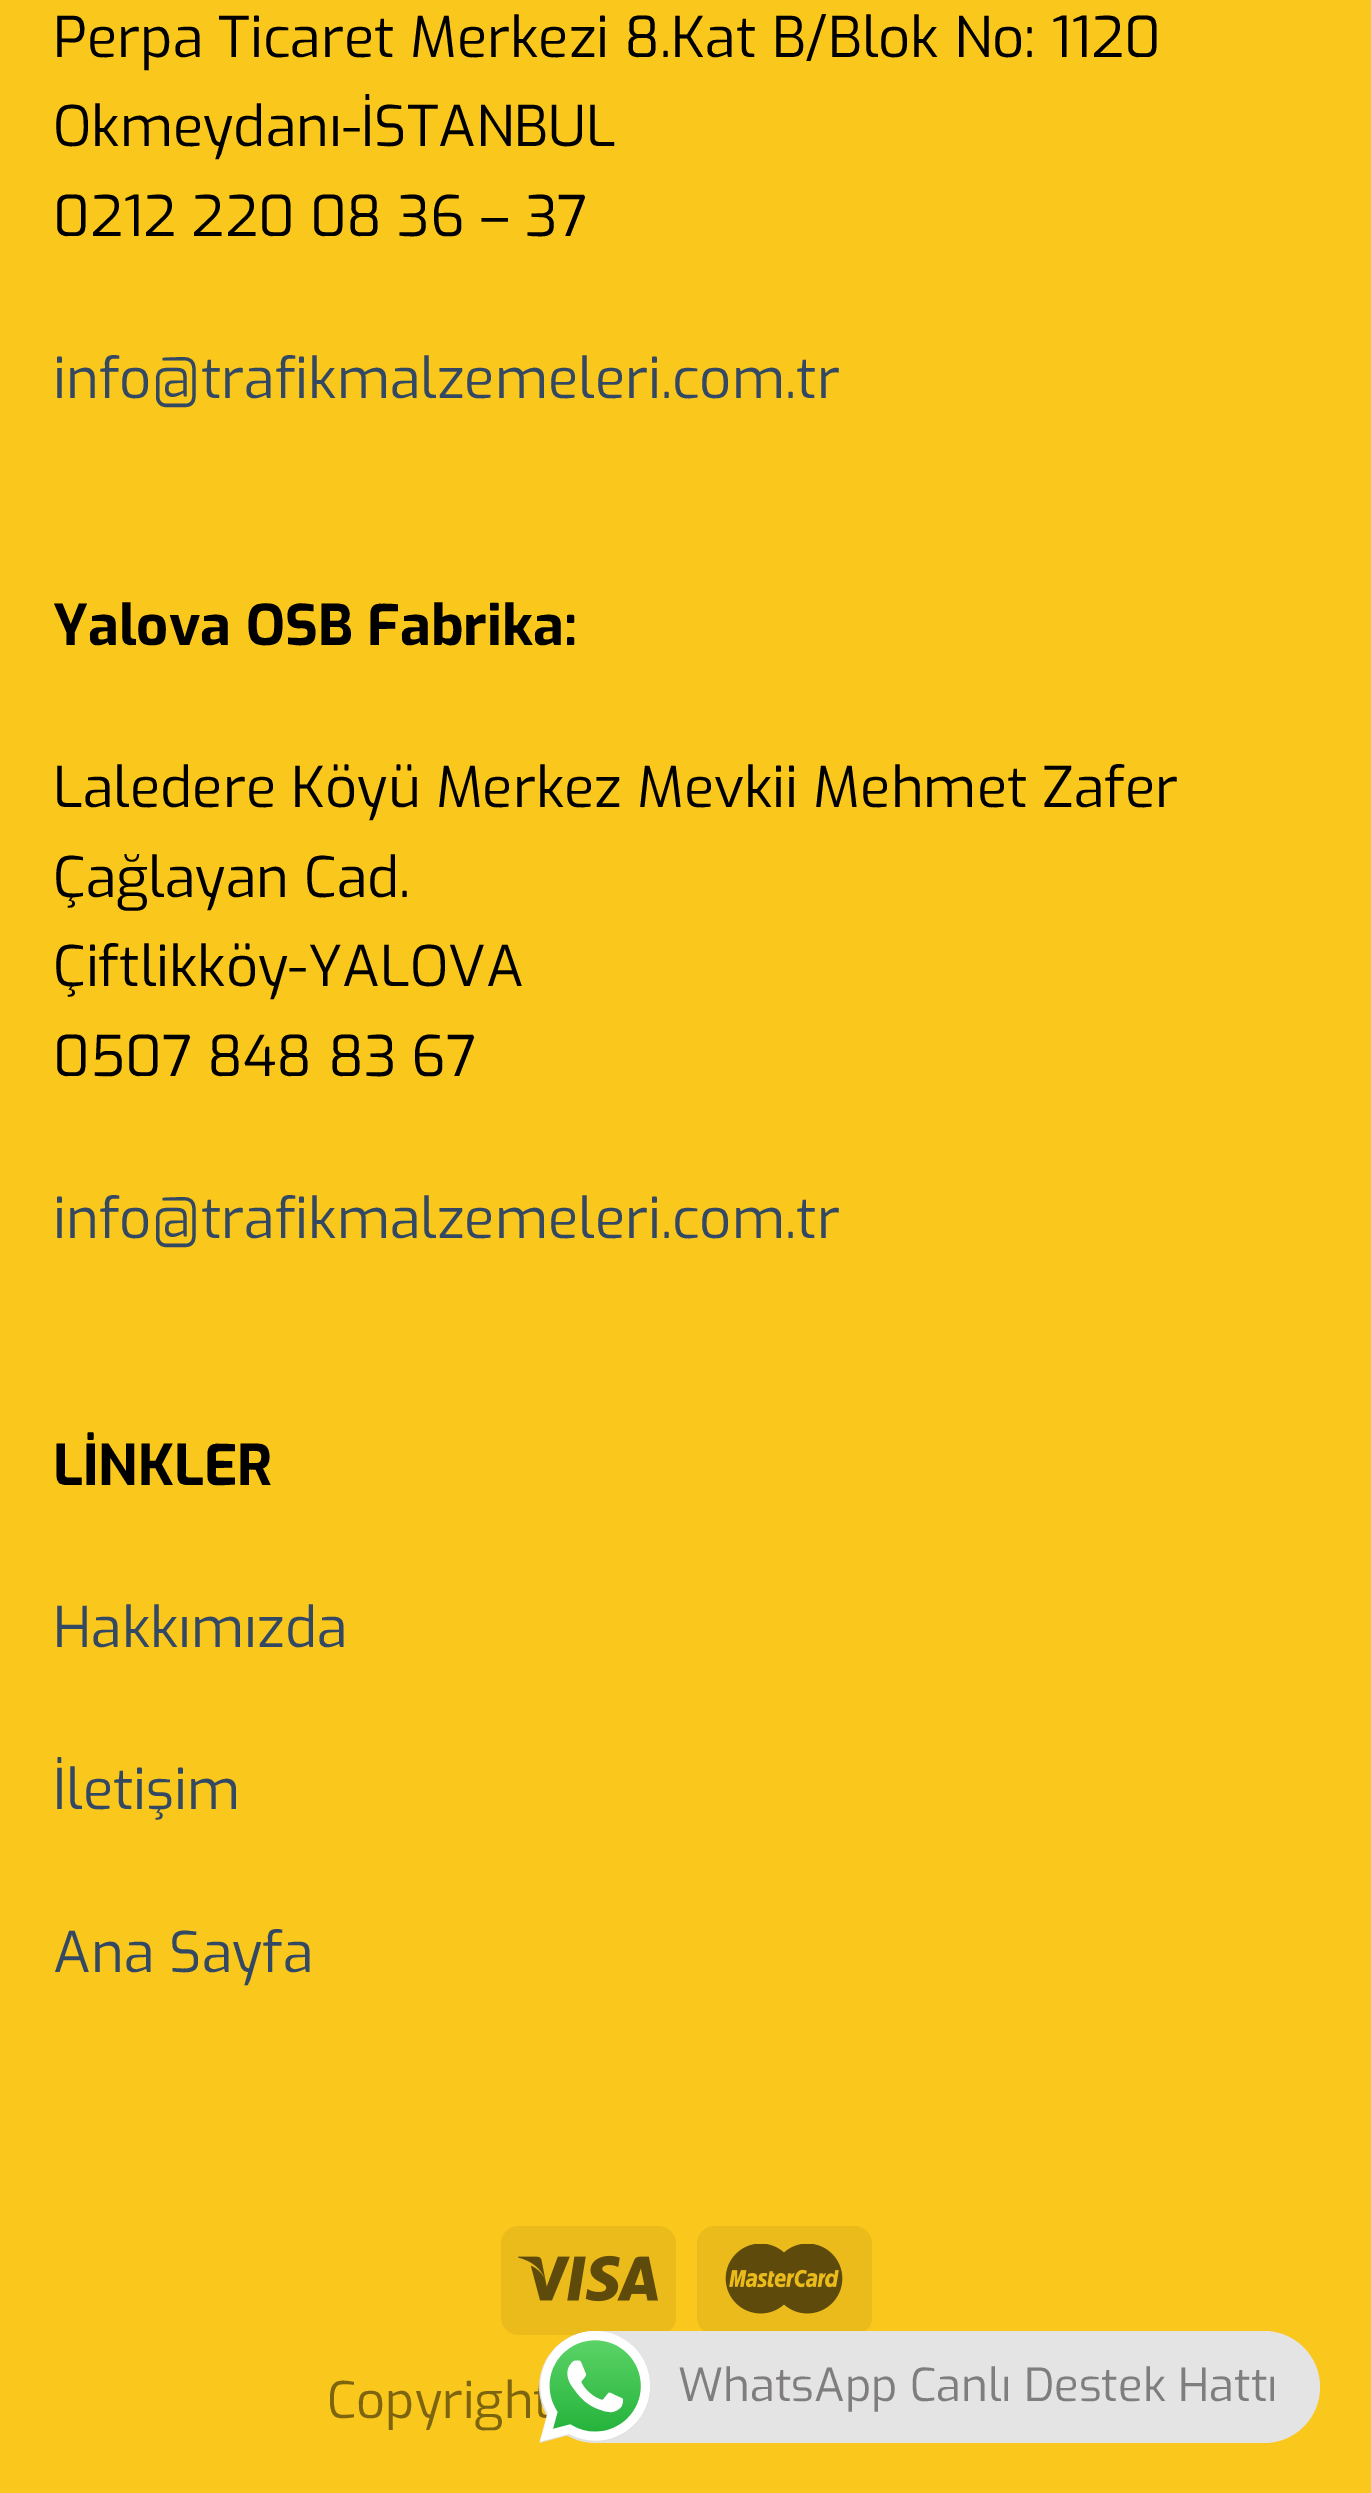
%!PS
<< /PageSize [1371 2493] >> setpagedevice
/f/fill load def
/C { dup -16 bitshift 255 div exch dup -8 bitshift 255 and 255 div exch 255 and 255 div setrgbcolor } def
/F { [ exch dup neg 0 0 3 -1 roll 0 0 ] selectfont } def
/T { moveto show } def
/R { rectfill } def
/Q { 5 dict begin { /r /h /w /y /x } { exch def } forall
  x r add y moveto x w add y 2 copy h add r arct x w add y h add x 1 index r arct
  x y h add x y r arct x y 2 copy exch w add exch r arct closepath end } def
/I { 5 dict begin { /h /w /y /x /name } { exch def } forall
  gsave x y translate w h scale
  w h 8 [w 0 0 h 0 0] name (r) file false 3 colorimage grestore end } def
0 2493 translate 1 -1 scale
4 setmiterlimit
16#FAC71D C
0 0 1371 2493 R
/Exo-Regular 56 F
16#000000 C
(Perpa Ticaret Merkezi 8.Kat B/Blok No: 1120) 53 57 T
(Okmeydanı-İSTANBUL) 53 146 T
(0212 220 08 36 – 37) 53 236 T
16#334862 C
(info@trafikmalzemeleri.com.tr) 53 398 T
/Exo-Bold 56 F
16#000000 C
(Yalova OSB Fabrika:) 53 645 T
/Exo-Regular 56 F
(Laledere Köyü Merkez Mevkii Mehmet Zafer) 53 807 T
(Çağlayan Cad.) 53 897 T
(Çiftlikköy-YALOVA) 53 986 T
(0507 848 83 67) 53 1076 T
16#334862 C
(info@trafikmalzemeleri.com.tr) 53 1238 T
/Exo-Bold 56 F
16#000000 C
(LİNKLER) 53 1485 T
/Exo-Regular 56 F
16#334862 C
(Hakkımızda) 53 1647 T
(İletişim) 53 1809 T
(Ana Sayfa) 53 1972 T
16#EBBB1B C
501 2226 175 109 18 Q f
(1.rgb) 518 2255 140 47 I
697 2226 175 109 18 Q f
(2.rgb) 725 2244 118 70 I
/Exo-Regular 50.5 F
16#7D640F C
(Copyright) 327 2418 T
16#E4E4E4 C
539 2331 781 112 56 Q f
(3.rgb) 539 2331 111 112 I
/Exo-Regular 45.5 F
16#7F7D7D C
(WhatsApp Canlı Destek Hattı) 678 2401 T
showpage
